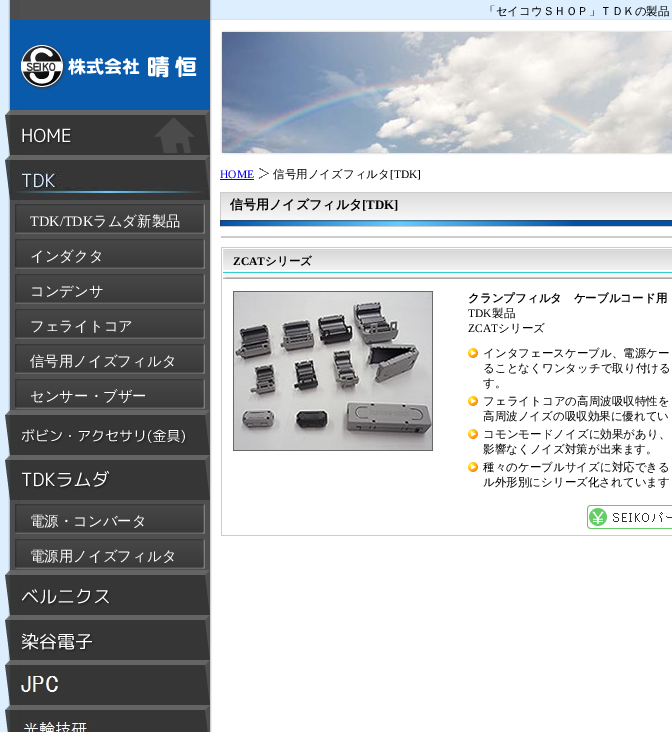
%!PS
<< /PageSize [672 732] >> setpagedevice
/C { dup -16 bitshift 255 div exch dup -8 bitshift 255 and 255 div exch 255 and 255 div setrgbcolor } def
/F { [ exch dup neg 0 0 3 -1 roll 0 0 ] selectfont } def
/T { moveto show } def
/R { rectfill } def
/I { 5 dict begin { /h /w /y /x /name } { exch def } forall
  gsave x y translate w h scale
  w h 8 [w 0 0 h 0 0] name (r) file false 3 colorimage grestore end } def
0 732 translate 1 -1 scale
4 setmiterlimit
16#DDEEFE C
0 0 672 732 R
(1.rgb) 8 0 664 732 I
16#4C4D4F C
19 0 1 25 R
(2.rgb) 10 20 200 90 I
(3.rgb) 5 110 205 45 I
(4.rgb) 5 155 205 45 I
(5.rgb) 15 204 190 30 I
/LiberationSerif-Regular 14.4 F
16#FFFFFF C
(TDK/TDK) 30 226 T
/WenQuanYiZenHei-Medium 14.4 F
(ラムダ新製品) 93 226 T
(5.rgb) 15 239 190 30 I
(インダクタ) 30 261 T
(5.rgb) 15 274 190 30 I
(コンデンサ) 30 296 T
(5.rgb) 15 309 190 30 I
(フェライトコア) 30 331 T
(5.rgb) 15 344 190 30 I
(信号用ノイズフィルタ) 30 366 T
(5.rgb) 15 379 190 30 I
(センサー・ブザー) 30 401 T
(6.rgb) 5 410 205 45 I
(7.rgb) 5 455 205 45 I
(5.rgb) 15 504 190 30 I
(電源・コンバータ) 30 526 T
(5.rgb) 15 539 190 30 I
(電源用ノイズフィルタ) 30 561 T
(8.rgb) 5 570 205 45 I
(9.rgb) 5 615 205 45 I
(10.rgb) 5 660 205 45 I
(11.rgb) 5 705 205 27 I
(12.rgb) 210 0 462 20 I
/WenQuanYiZenHei-Medium 11.5 F
16#000000 C
(「セイコウＳＨＯＰ」ＴＤＫの製品) 484 15 T
(13.rgb) 220 30 452 125 I
/LiberationSerif-Regular 11.5 F
16#0000EE C
(HOME) 220 178 T
220 179 34 1 R
(14.rgb) 259 168 10 12 I
/WenQuanYiZenHei-Medium 11.5 F
16#000000 C
(信号用ノイズフィルタ) 273 178 T
/LiberationSerif-Regular 11.5 F
([TDK]) 390 178 T
(15.rgb) 220 192 452 35 I
/WenQuanYiZenHei-Bold 13 F
(信号用ノイズフィルタ) 230 209 T
/LiberationSerif-Bold 13 F
([TDK]) 362 209 T
16#CCCCCC C
221 236 451 2 R
221 247 451 1 R
221 535 451 1 R
221 247 1 289 R
(16.rgb) 223 249 449 30 I
/LiberationSerif-Bold 11.5 F
16#000000 C
(ZCAT) 233 265 T
/WenQuanYiZenHei-Bold 11.5 F
(シリーズ) 265 265 T
(17.rgb) 233 291 200 160 I
(クランプフィルタ　ケーブルコード用) 468 302 T
/LiberationSerif-Regular 11.5 F
(TDK) 468 317 T
/WenQuanYiZenHei-Medium 11.5 F
(製品) 492 317 T
/LiberationSerif-Regular 11.5 F
(ZCAT) 468 332 T
/WenQuanYiZenHei-Medium 11.5 F
(シリーズ) 498 332 T
(18.rgb) 468 348 10 10 I
(インタフェースケーブル、電源ケー) 483 357 T
(ることなくワンタッチで取り付ける) 483 372 T
(す。) 483 387 T
(18.rgb) 468 396 10 10 I
(フェライトコアの高周波吸収特性を) 483 405 T
(高周波ノイズの吸収効果に優れてい) 483 420 T
(18.rgb) 468 429 10 10 I
(コモンモードノイズに効果があり、) 483 438 T
(影響なくノイズ対策が出来ます。) 483 453 T
(18.rgb) 468 462 10 10 I
(種々のケーブルサイズに対応できる) 483 471 T
(ル外形別にシリーズ化されています) 483 486 T
(19.rgb) 587 505 85 24 I
showpage
